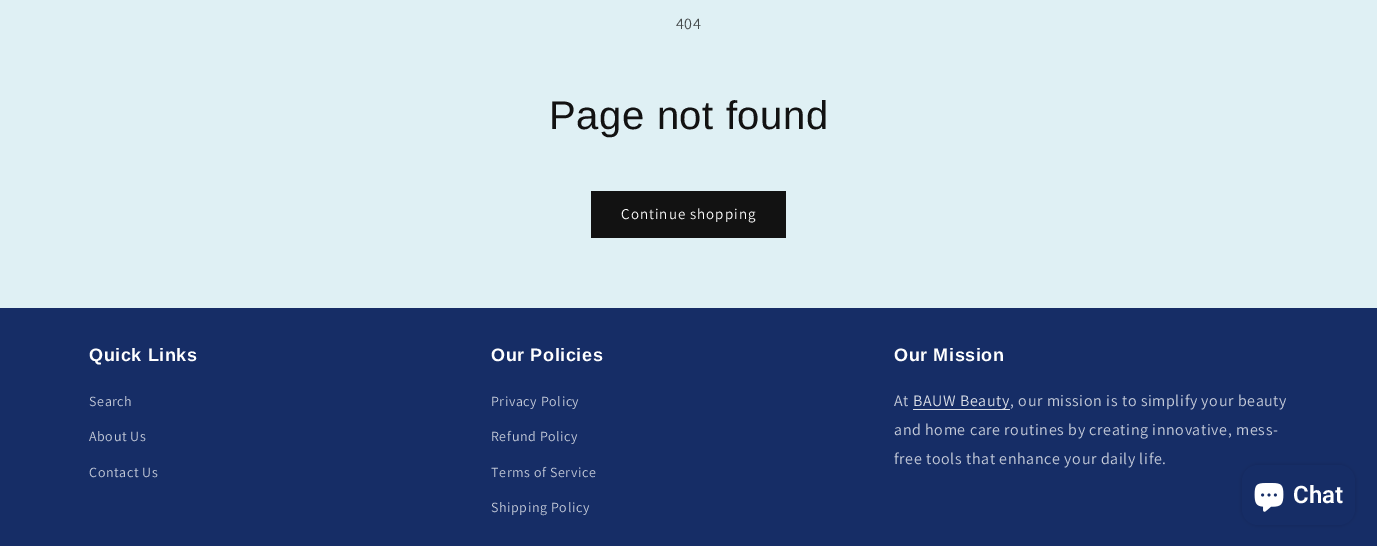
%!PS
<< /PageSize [1377 546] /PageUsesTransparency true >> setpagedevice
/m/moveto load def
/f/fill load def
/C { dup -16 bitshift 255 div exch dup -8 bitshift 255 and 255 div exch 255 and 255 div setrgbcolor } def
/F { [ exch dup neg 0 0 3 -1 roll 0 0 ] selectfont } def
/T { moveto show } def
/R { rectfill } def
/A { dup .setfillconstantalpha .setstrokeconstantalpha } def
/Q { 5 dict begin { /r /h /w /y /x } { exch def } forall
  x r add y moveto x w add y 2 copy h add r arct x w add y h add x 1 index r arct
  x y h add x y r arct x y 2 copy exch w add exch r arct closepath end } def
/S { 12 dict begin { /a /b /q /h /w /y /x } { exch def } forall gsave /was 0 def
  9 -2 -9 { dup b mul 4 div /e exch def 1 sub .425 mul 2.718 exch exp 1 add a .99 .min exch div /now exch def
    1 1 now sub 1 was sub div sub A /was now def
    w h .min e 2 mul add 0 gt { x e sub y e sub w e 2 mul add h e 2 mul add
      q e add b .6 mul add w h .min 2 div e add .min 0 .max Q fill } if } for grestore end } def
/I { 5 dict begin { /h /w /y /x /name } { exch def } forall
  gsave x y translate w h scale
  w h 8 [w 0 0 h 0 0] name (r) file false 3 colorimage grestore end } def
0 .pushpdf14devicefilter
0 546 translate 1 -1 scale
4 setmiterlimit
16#DFF0F4 C
0 0 1377 546 R
/Assistant-Regular 16 F
16#454A4B C
676 29 m .6 0 (404) ashow
/LiberationSans-Regular 40 F
16#121212 C
549 129 m .6 0 (Page not found) ashow
591 191 195 47 R
/Assistant-Regular 15 F
16#FFFFFF C
621 219 m 1 0 (Continue shopping) ashow
16#162D66 C
0 308 1377 238 R
/LiberationSans-Bold 18 F
16#FFFFFF C
89 361 m .6 0 (Quick Links) ashow
/Assistant-Regular 14 F
16#C5CBD9 C
89 406 m .6 0 (Search) ashow
89 441 m .6 0 (About Us) ashow
89 477 m .6 0 (Contact Us) ashow
/LiberationSans-Bold 18 F
16#FFFFFF C
491 361 m .6 0 (Our Policies) ashow
/Assistant-Regular 14 F
16#C5CBD9 C
491 406 m .6 0 (Privacy Policy) ashow
491 441 m .6 0 (Refund Policy) ashow
491 477 m .6 0 (Terms of Service) ashow
491 512 m .6 0 (Shipping Policy) ashow
/LiberationSans-Bold 18 F
16#FFFFFF C
894 361 m .6 0 (Our Mission) ashow
/Assistant-Regular 16 F
16#C5CBD9 C
894 406 m .6 0 (At) ashow
16#DCE0E8 C
913 409 97 1 R
913 406 m .6 0 (BAUW Beauty) ashow
16#C5CBD9 C
1010 406 m .6 0 (, our mission is to simplify your beauty) ashow
894 435 m .6 0 (and home care routines by creating innovative, mess-) ashow
894 464 m .6 0 (free tools that enhance your daily life.) ashow
16#000000 C
1242 465 113 60 16 2.5 .15 S
16#162D66 C
1242 465 113 60 16 Q f
(1.rgb) 1254 483 30 29 I
/Roboto-SemiBold 24 F
16#FFFFFF C
(Chat) 1293 503 T
.poppdf14devicefilter showpage
